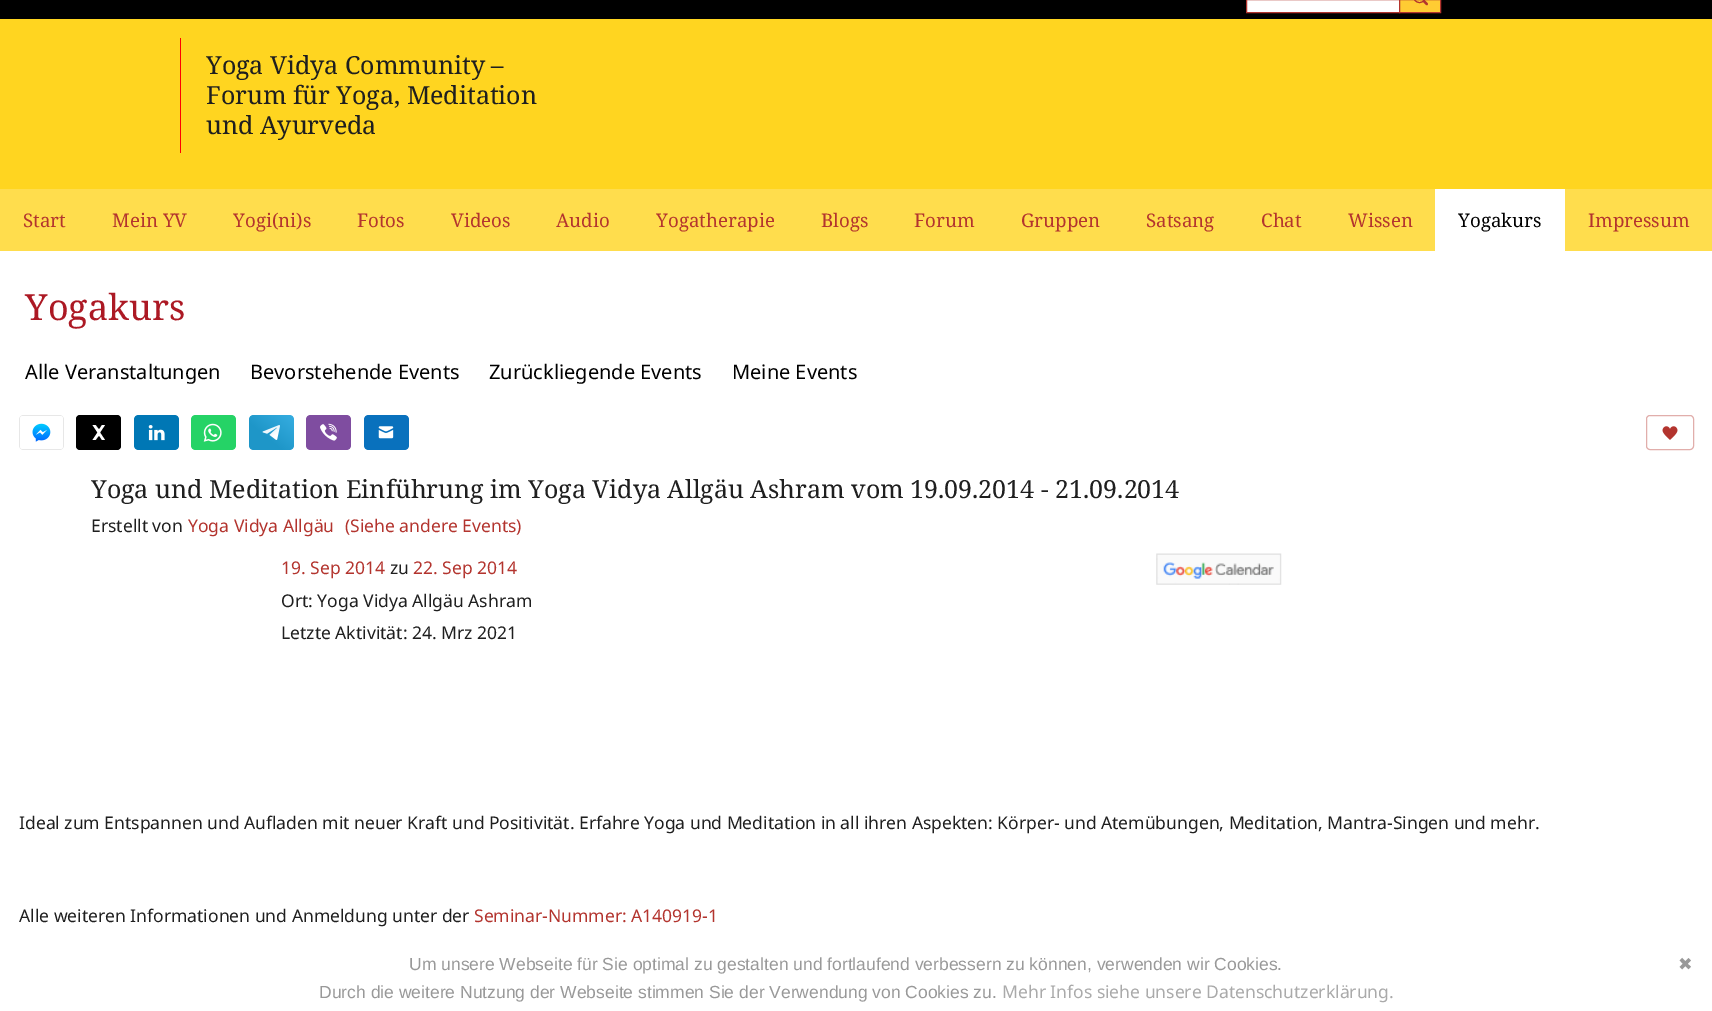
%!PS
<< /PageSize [1712 1011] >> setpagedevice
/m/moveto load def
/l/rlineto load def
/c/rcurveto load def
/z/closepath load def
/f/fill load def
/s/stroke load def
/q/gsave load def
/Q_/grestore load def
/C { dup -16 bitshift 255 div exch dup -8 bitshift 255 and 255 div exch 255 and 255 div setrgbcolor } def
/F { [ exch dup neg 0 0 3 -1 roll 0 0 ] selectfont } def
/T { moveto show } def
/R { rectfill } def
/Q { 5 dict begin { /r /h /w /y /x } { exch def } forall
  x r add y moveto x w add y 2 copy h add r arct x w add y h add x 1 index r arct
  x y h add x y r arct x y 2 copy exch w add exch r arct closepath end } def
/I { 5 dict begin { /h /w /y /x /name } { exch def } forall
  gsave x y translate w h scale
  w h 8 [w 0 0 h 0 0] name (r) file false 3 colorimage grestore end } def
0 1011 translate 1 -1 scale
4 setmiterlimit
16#FFD520 C
0 0 1712 1011 R
16#000000 C
0 0 1712 19 R
16#FFFFFF C
1246.5 -.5 m 153 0 l 0 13 l -153 0 l z q f Q_
16#B3342E C
s
16#FFCC33 C
1399.5 -.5 m 41 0 l 0 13 l -41 0 l z q f Q_
16#B3342E C
s
1413.5 -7.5 12 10 6 Q s
1425 .5 m 2 2 l 2 2 0 3.5 -1.5 2 c -2.5 -2.5 l -1 -1.5 1 -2.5 2 -1.5 c z f
16#FF0000 C
180 38 1 115 R
/NotoSerif-Regular 25 F
16#1F1F1F C
(Yoga Vidya Community –) 206 74 T
(Forum für Yoga, Meditation) 206 104 T
(und Ayurveda) 206 134 T
16#FFDD4D C
0 189 1712 62 R
/NotoSerif-Regular 18.75 F
16#B3342E C
(Start) 23 227 T
(Mein YV) 112 227 T
(Yogi\(ni\)s) 233 227 T
(Fotos) 357 227 T
(Videos) 451 227 T
(Audio) 556 227 T
(Yogatherapie) 656 227 T
(Blogs) 821 227 T
(Forum) 914 227 T
(Gruppen) 1021 227 T
(Satsang) 1146 227 T
(Chat) 1261 227 T
(Wissen) 1348 227 T
16#FFFFFF C
1435 189 130 62 R
16#000000 C
(Yogakurs) 1458 227 T
16#B3342E C
(Impressum) 1588 227 T
16#FFFFFF C
0 251 1712 760 R
/NotoSerif-Regular 36 F
16#AC1924 C
(Yogakurs) 25 320 T
/NotoSans-Regular 20 F
16#000000 C
(Alle Veranstaltungen) 25 379 T
(Bevorstehende Events) 250 379 T
(Zurückliegende Events) 489 379 T
(Meine Events) 732 379 T
(1.rgb) 19 415 45 35 I
76 415 45 35 4 Q f
16#FFFFFF C
92.5 425 m 5 7.5 l -5 7.5 l 3 0 l 3.5 -4.5 l 3 4.5 l 3 0 l -5 -7.5 l 5 -7.5 l -3 0 l -3 4.5 l -3.5 -4.5 l z eofill
(2.rgb) 134 415 45 35 I
(3.rgb) 191 415 45 35 I
(4.rgb) 249 415 45 35 I
(5.rgb) 306 415 45 35 I
(6.rgb) 364 415 45 35 I
16#E1AEAB C
1646.5 415.5 47 34 3.5 Q s
(7.rgb) 1662 426 16 14 I
/NotoSerif-Regular 25 F
16#1F1F1F C
(Yoga und Meditation Einführung im Yoga Vidya Allgäu Ashram vom 19.09.2014 - 21.09.2014) 91 498 T
/NotoSans-Regular 17.5 F
(Erstellt von) 91 532 T
16#B3342E C
(Yoga Vidya Allgäu) 188 532 T
(\(Siehe andere Events\)) 345 532 T
(19. Sep 2014) 281 574 T
16#1F1F1F C
(zu) 390 574 T
16#B3342E C
(22. Sep 2014) 413 574 T
16#1F1F1F C
(Ort: Yoga Vidya Allgäu Ashram) 281 607 T
(Letzte Aktivität: 24. Mrz 2021) 281 639 T
(8.rgb) 1156 553 126 32 I
(Ideal zum Entspannen und Aufladen mit neuer Kraft und Positivität. Erfahre Yoga und Meditation in all ihren Aspekten: Körper- und Atemübungen, Meditation, Mantra-Singen und mehr.) 19 829 T
(Alle weiteren Informationen und Anmeldung unter der) 19 922 T
16#B3342E C
(Seminar-Nummer: A140919-1) 474 922 T
/LiberationSans-Regular 17.5 F
16#999999 C
(Um unsere Webseite für Sie optimal zu gestalten und fortlaufend verbessern zu können, verwenden wir Cookies.) 409 970 T
/DejaVuSans-Regular 17.5 F
(✖) 1678 970 T
/LiberationSans-Regular 17.5 F
(Durch die weitere Nutzung der Webseite stimmen Sie der Verwendung von Cookies zu.) 319 998 T
/NotoSans-Regular 17.5 F
16#AAAAAA C
(Mehr Infos siehe unsere Datenschutzerklärung.) 1002 998 T
showpage
